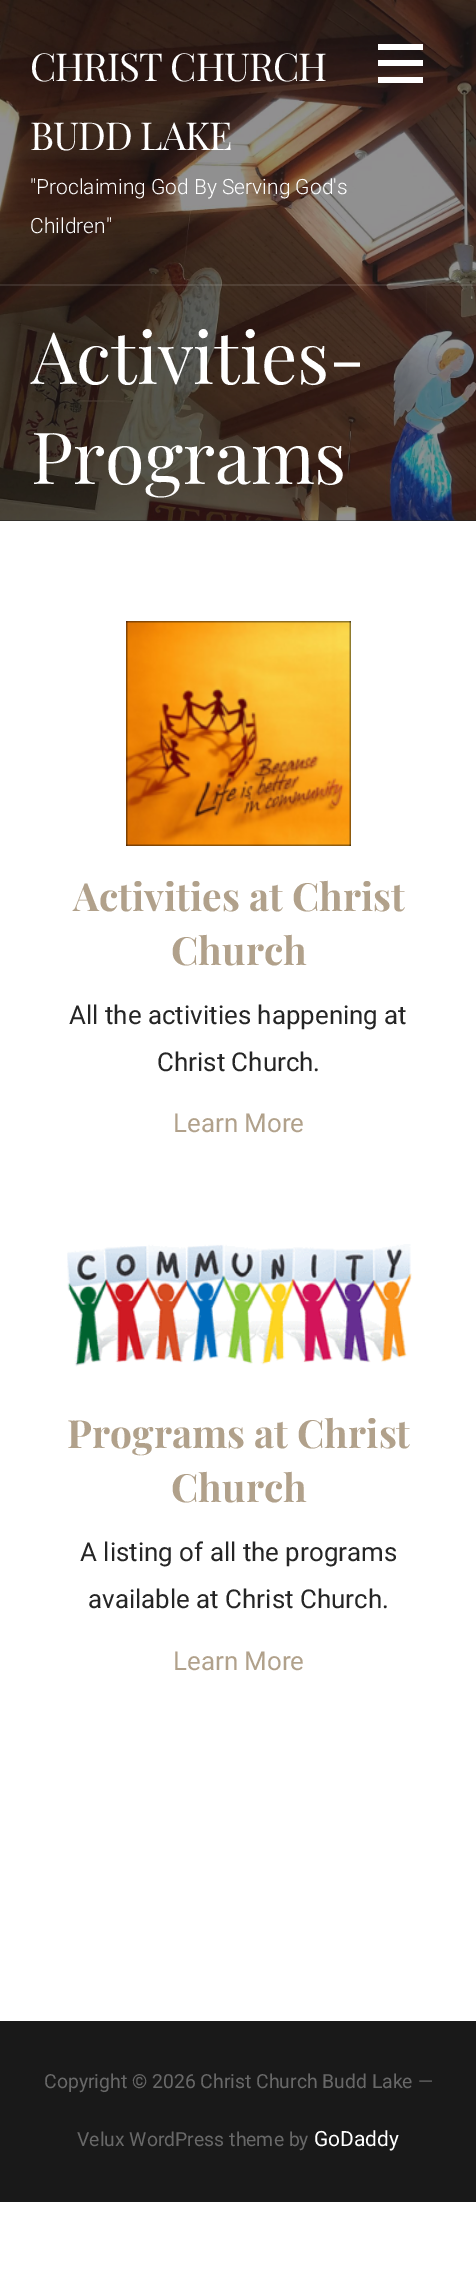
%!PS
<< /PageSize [476 2278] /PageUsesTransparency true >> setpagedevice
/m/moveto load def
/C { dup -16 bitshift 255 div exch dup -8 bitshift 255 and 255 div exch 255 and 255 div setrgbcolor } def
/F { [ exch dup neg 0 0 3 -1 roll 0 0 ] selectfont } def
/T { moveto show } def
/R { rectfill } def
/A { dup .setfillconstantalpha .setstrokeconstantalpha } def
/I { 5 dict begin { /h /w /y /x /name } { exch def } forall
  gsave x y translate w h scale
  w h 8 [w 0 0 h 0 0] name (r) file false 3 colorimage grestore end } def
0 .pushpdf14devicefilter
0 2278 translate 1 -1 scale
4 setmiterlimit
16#FFFFFF C
0 0 476 2278 R
16#212121 C
0 520 476 1 R
(1.rgb) 0 0 476 521 I
0.1 A
16#FFFFFF C
0 284 476 2 R
/PlayfairDisplay-Regular 38.5 F
1 A
30 81 m -1.1 0 (CHRIST CHURCH) ashow
30 150 m -1.1 0 (BUDD LAKE) ashow
/Roboto-Light 21 F
("Proclaiming God By Serving God's) 30 194 T
(Children") 30 233 T
378 44 45 6 R
378 60 45 6 R
378 77 45 6 R
/PlayfairDisplay-Regular 72 F
(Activities-) 31 384 T
(Programs) 31 484 T
(2.rgb) 126 621 225 225 I
/PlayfairDisplay-Bold 38.9 F
16#B1A18B C
(Activities at Christ) 73 911 T
(Church) 171 965 T
/Roboto-Regular 25.9 F
16#252525 C
(All the activities happening at) 69 1024 T
(Christ Church.) 157 1071 T
16#B1A18B C
(Learn More) 173 1132 T
(3.rgb) 67 1244 345 123 I
/PlayfairDisplay-Bold 38.9 F
(Programs at Christ) 67 1448 T
(Church) 171 1502 T
/Roboto-Regular 25.9 F
16#252525 C
(A listing of all the programs) 80 1561 T
(available at Christ Church.) 88 1608 T
16#B1A18B C
(Learn More) 173 1670 T
16#191919 C
0 2021 476 181 R
/Roboto-Regular 19.4 F
16#686868 C
(Copyright © 2026 Christ Church Budd Lake —) 44 2088 T
(Velux WordPress theme by) 77 2146 T
/Roboto-Regular 21 F
16#FFFFFF C
(GoDaddy) 314 2146 T
.poppdf14devicefilter showpage
